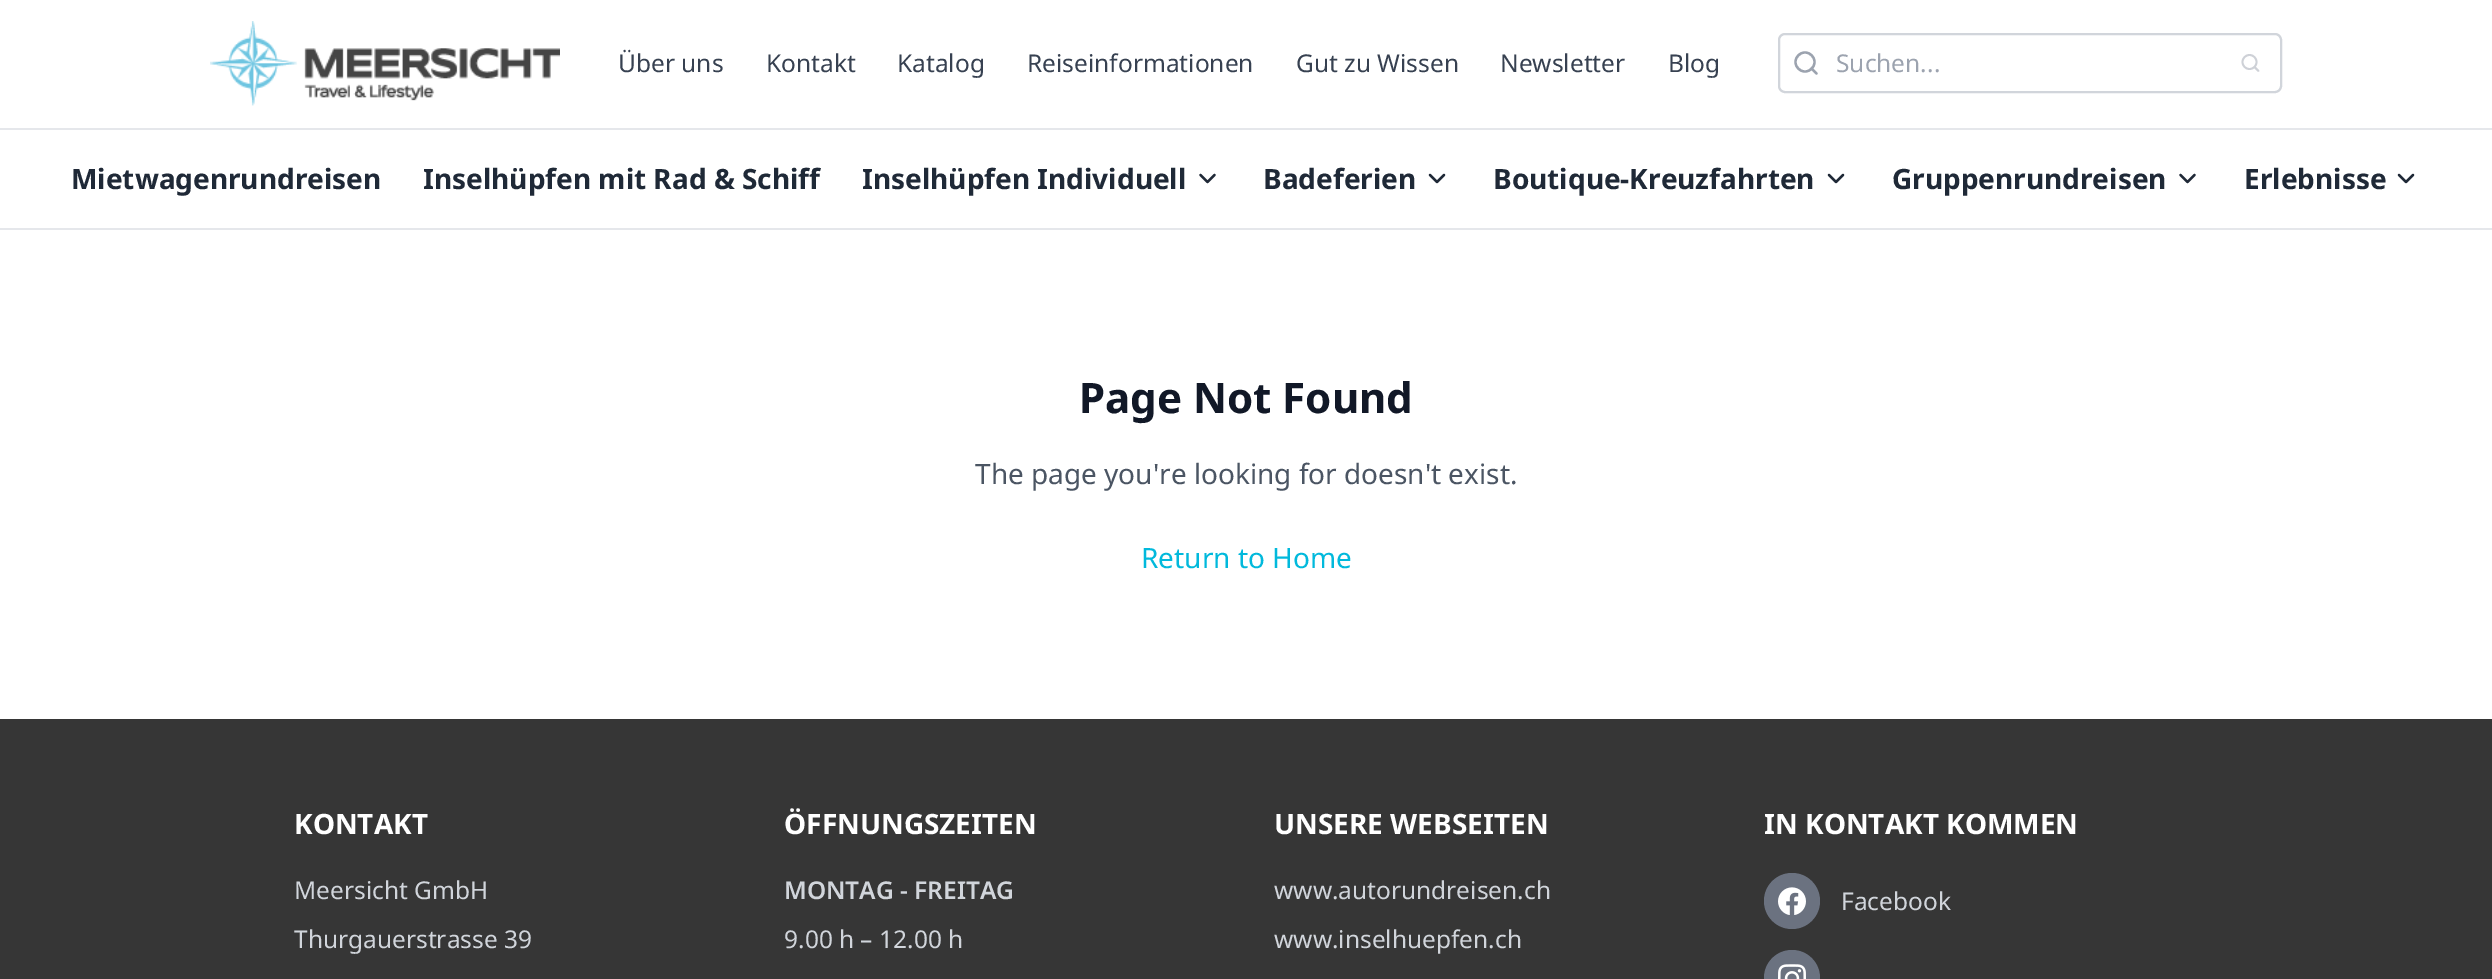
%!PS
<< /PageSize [2492 979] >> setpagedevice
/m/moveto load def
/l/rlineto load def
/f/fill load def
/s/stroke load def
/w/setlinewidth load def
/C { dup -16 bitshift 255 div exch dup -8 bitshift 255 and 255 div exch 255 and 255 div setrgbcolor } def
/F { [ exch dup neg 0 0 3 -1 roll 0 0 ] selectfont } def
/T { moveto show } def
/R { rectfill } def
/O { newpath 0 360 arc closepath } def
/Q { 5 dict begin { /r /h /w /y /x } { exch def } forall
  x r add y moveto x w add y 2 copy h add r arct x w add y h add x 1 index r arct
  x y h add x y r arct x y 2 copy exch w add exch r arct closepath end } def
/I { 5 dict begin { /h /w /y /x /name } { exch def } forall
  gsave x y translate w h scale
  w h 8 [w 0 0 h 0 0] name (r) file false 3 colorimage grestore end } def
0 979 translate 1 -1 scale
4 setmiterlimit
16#FFFFFF C
0 0 2492 979 R
16#E5E7EB C
0 128 2492 2 R
(1.rgb) 210 21 350 85 I
/NotoSans-Regular 24.5 F
16#374151 C
(Über uns) 618 72 T
(Kontakt) 766 72 T
(Katalog) 897 72 T
(Reiseinformationen) 1027 72 T
(Gut zu Wissen) 1296 72 T
(Newsletter) 1500 72 T
(Blog) 1668 72 T
16#D1D5DB C
2 w
1779 34 502 58 6 Q s
16#9CA3AF C
2.3 w
1 setlinecap
1 setlinejoin
1816.5 73.5 m -5 -5 l s
0 setlinecap
0 setlinejoin
1805 62 9.5 O s
(Suchen...) 1836 72 T
16#CED1D7 C
1.8 w
1 setlinecap
1 setlinejoin
2258.5 71 m -4 -4 l s
0 setlinecap
0 setlinejoin
2249.5 62 7 O s
16#E5E7EB C
0 228 2492 2 R
/NotoSans-Bold 28 F
16#1F2937 C
(Mietwagenrundreisen) 71 189 T
(Inselhüpfen mit Rad & Schiff) 423 189 T
(Inselhüpfen Individuell) 862 189 T
2.3 w
1 setlinecap
1 setlinejoin
1200.5 175 m 7 7 l 7 -7 l s
(Badeferien) 1263 189 T
1430 175 m 7 7 l 7 -7 l s
(Boutique-Kreuzfahrten) 1493 189 T
1829 175 m 7 7 l 7 -7 l s
(Gruppenrundreisen) 1892 189 T
2180.5 175 m 7 7 l 7 -7 l s
(Erlebnisse) 2244 189 T
2399 175 m 7 7 l 7 -7 l s
/NotoSans-Bold 42 F
16#111827 C
(Page Not Found) 1079 413 T
/NotoSans-Regular 28 F
16#4B5563 C
(The page you're looking for doesn't exist.) 975 484 T
16#01B9DC C
(Return to Home) 1141 568 T
16#363636 C
0 719 2492 260 R
/NotoSans-Bold 28 F
16#FFFFFF C
(KONTAKT) 294 834 T
/NotoSans-Regular 24.5 F
16#D1D5DB C
(Meersicht GmbH) 294 899 T
(Thurgauerstrasse 39) 294 948 T
/NotoSans-Bold 28 F
16#FFFFFF C
(ÖFFNUNGSZEITEN) 784 834 T
/NotoSans-SemiBold 24.5 F
16#D1D5DB C
(MONTAG - FREITAG) 784 899 T
/NotoSans-Regular 24.5 F
(9.00 h – 12.00 h) 784 948 T
/NotoSans-Bold 28 F
16#FFFFFF C
(UNSERE WEBSEITEN) 1274 834 T
/NotoSans-Regular 24.5 F
16#D1D5DB C
(www.autorundreisen.ch) 1274 899 T
(www.inselhuepfen.ch) 1274 948 T
/NotoSans-Bold 28 F
16#FFFFFF C
(IN KONTAKT KOMMEN) 1764 834 T
16#6B7280 C
1792 901 28 O f
(2.rgb) 1778 887 28 28 I
/NotoSans-Regular 24.5 F
16#D1D5DB C
(Facebook) 1841 910 T
16#6B7280 C
1792 978 28 O f
(3.rgb) 1778 964 28 15 I
showpage
